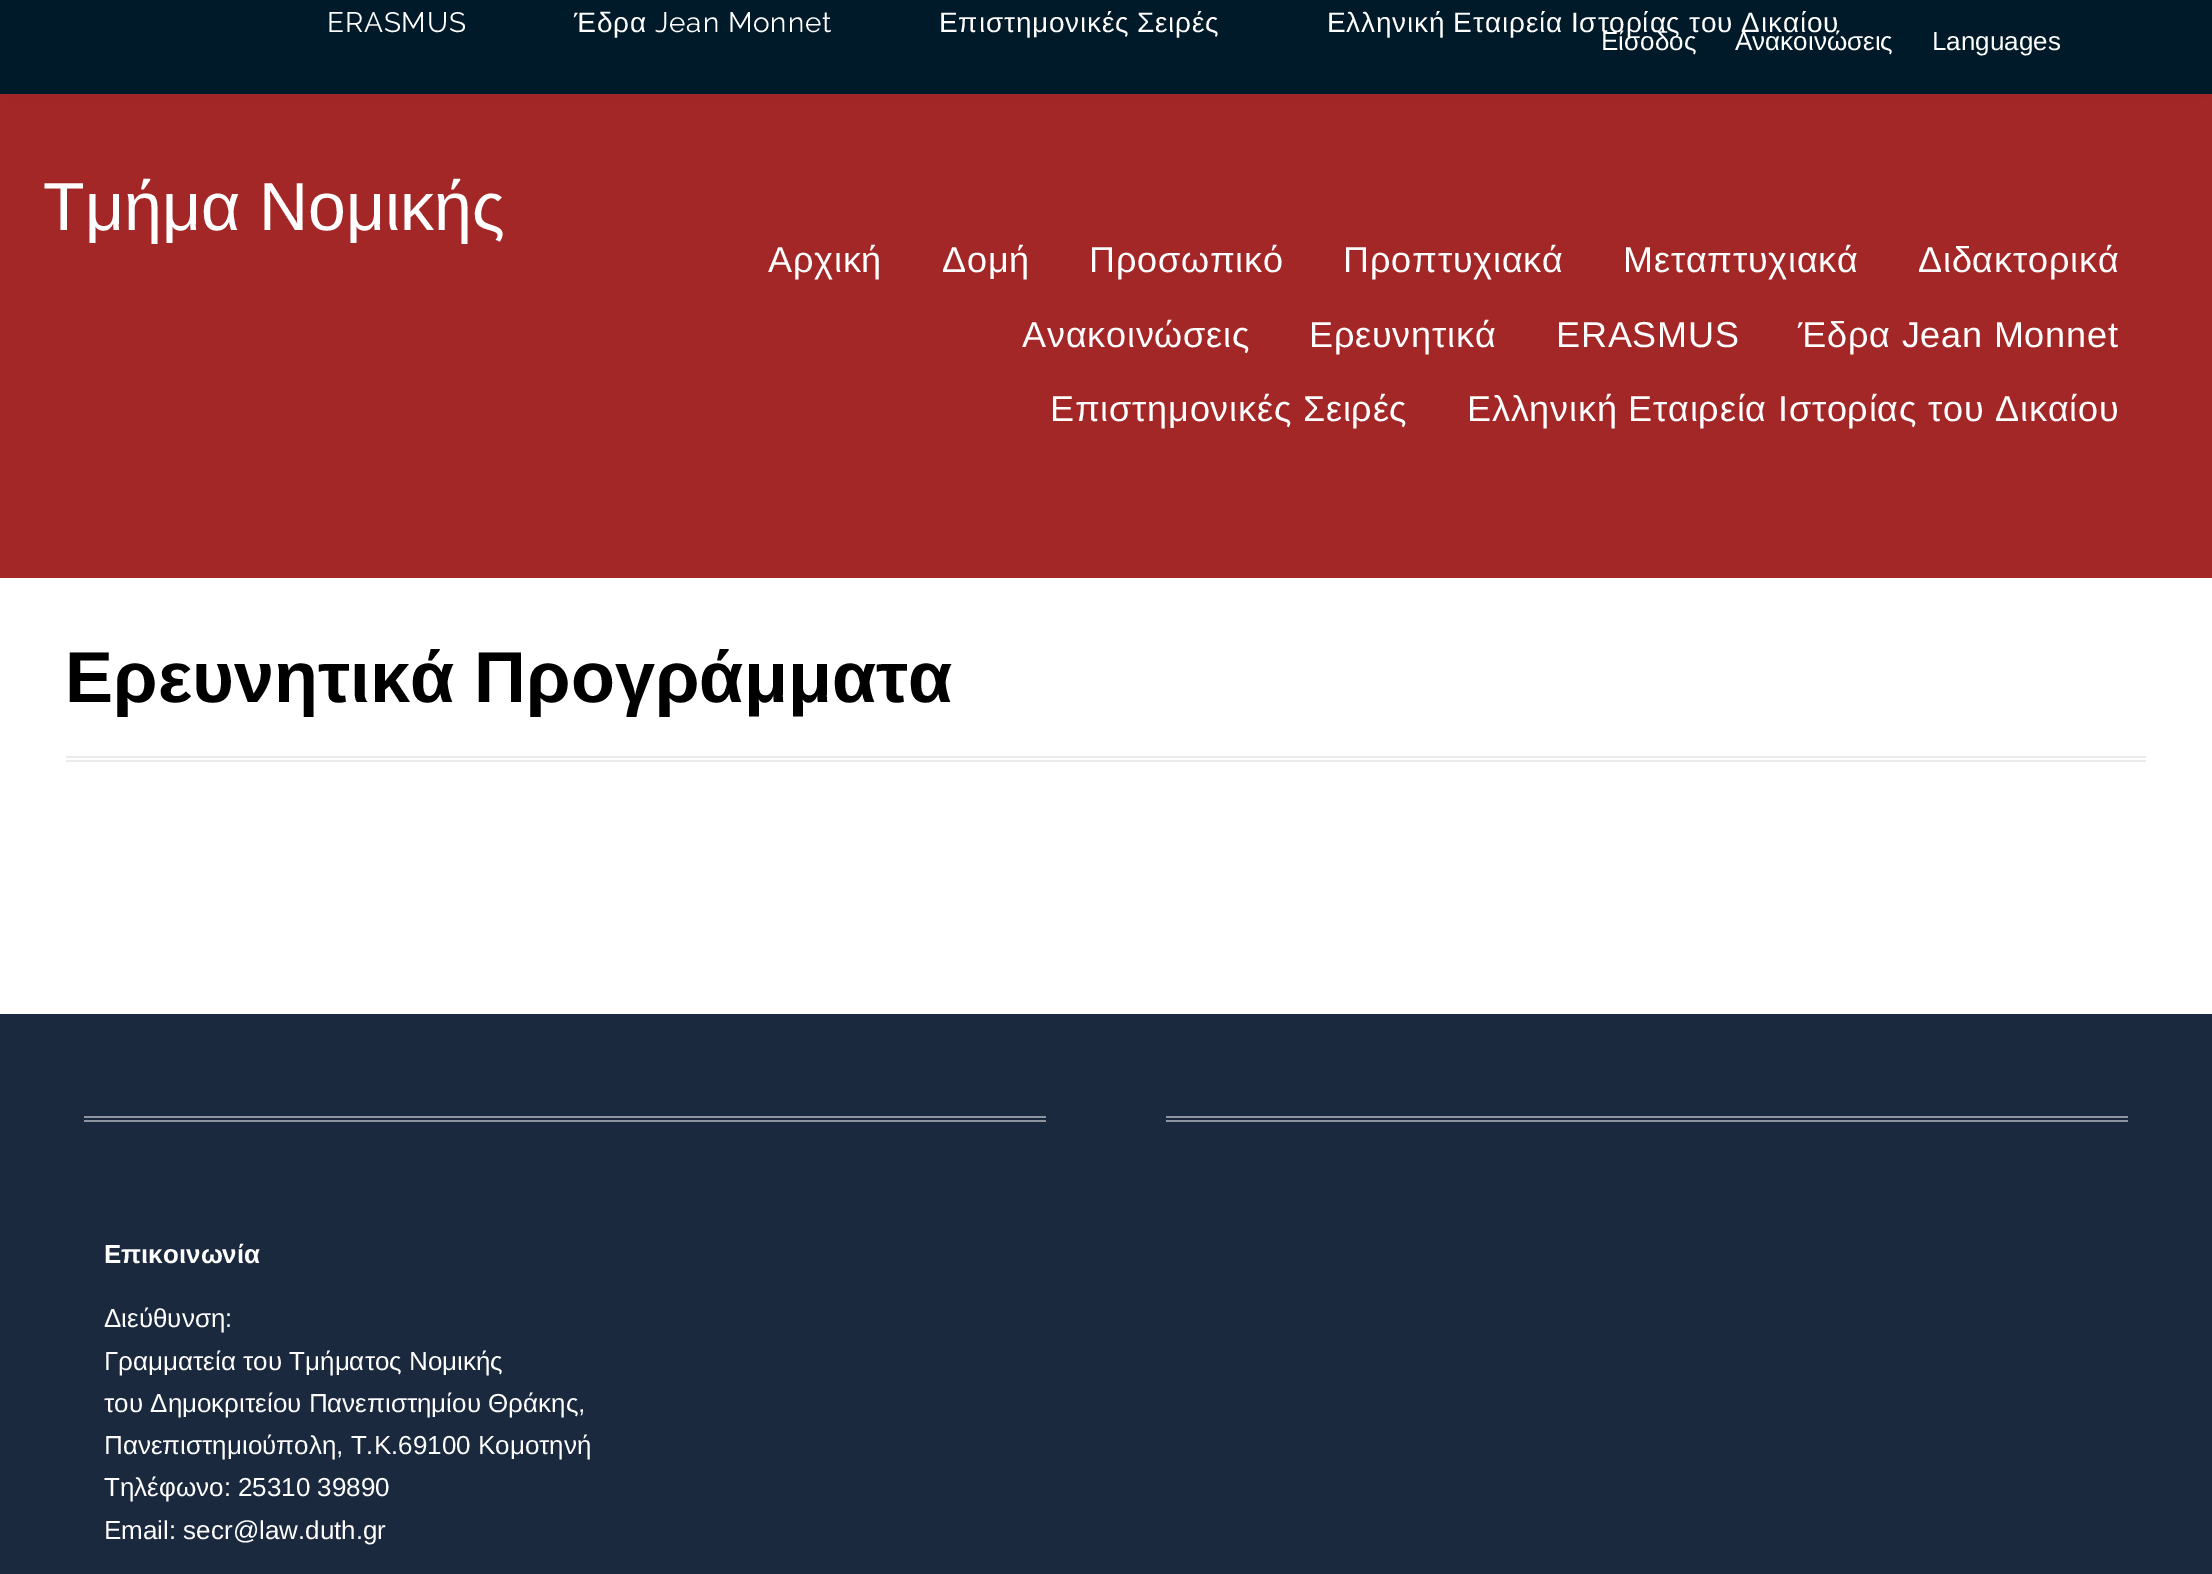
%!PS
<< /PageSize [2212 1574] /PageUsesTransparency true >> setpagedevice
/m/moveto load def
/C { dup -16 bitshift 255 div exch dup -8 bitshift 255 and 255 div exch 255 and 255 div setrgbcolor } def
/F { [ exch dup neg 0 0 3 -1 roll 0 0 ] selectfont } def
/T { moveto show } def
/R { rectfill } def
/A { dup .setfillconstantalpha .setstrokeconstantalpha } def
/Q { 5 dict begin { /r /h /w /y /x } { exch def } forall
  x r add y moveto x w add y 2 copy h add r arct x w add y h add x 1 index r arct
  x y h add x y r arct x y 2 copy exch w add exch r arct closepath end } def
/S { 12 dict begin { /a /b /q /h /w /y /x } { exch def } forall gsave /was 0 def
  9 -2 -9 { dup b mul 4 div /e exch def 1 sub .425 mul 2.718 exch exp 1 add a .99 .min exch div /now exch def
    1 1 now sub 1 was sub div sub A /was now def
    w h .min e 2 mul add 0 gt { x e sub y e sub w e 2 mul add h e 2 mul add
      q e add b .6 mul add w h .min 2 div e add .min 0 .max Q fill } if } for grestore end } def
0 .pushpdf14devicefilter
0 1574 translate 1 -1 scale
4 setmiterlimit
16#FFFFFF C
0 0 2212 1574 R
16#A32727 C
0 94 2212 484 R
16#840808 C
0 -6 2212 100 0 50 .1 S
16#011A29 C
0 0 2212 94 R
/Raleway-Regular 28 F
16#FFFFFF C
327 32 m .8 0 (ERASMUS) ashow
/LiberationSans-Regular 28 F
574 32 m .8 0 (Έδρα) ashow
/Raleway-Regular 28 F
655 32 m .8 0 (Jean Monnet) ashow
/LiberationSans-Regular 28 F
939 32 m -1 0 32 .8 0 (Επιστημονικές Σειρές) awidthshow
1327 32 m -.5 0 32 .8 0 (Ελληνική Εταιρεία Ιστορίας του Δικαίου) awidthshow
/LiberationSans-Regular 68 F
(Τμήμα Νομικής) 43 230 T
/LiberationSans-Regular 36 F
768 272 m .8 0 (Αρχική) ashow
942 272 m .8 0 (Δομή) ashow
1089 272 m .8 0 (Προσωπικό) ashow
1343 272 m .8 0 (Προπτυχιακά) ashow
1623 272 m .8 0 (Μεταπτυχιακά) ashow
1918 272 m .8 0 (Διδακτορικά) ashow
1022 347 m .8 0 (Ανακοινώσεις) ashow
1309 347 m .8 0 (Ερευνητικά) ashow
1556 347 m .8 0 (ERASMUS) ashow
1798 347 m .8 0 (Έδρα Jean Monnet) ashow
1050 421 m .8 0 (Επιστημονικές Σειρές) ashow
1467 421 m .8 0 (Ελληνική Εταιρεία Ιστορίας του Δικαίου) ashow
/LiberationSans-Regular 26 F
(Είσοδος) 1601 50 T
(Ανακοινώσεις) 1735 50 T
(Languages) 1932 50 T
/LiberationSans-Bold 72 F
16#000000 C
(Ερευνητικά Προγράμματα) 65 702 T
16#EBEBEB C
66 756 2080 2 R
66 760 2080 2 R
16#1B293F C
0 1014 2212 560 R
16#8D949F C
84 1116 962 2 R
84 1120 962 2 R
1166 1116 962 2 R
1166 1120 962 2 R
/LiberationSans-Bold 26 F
16#FFFFFF C
(Επικοινωνία) 104 1263 T
/LiberationSans-Regular 26 F
(Διεύθυνση:) 104 1327 T
(Γραμματεία του Τμήματος Νομικής) 104 1370 T
(του Δημοκριτείου Πανεπιστημίου Θράκης,) 104 1412 T
(Πανεπιστημιούπολη, Τ.Κ.69100 Κομοτηνή) 104 1454 T
(Τηλέφωνο: 25310 39890) 104 1496 T
(Email: secr@law.duth.gr) 104 1539 T
.poppdf14devicefilter showpage
